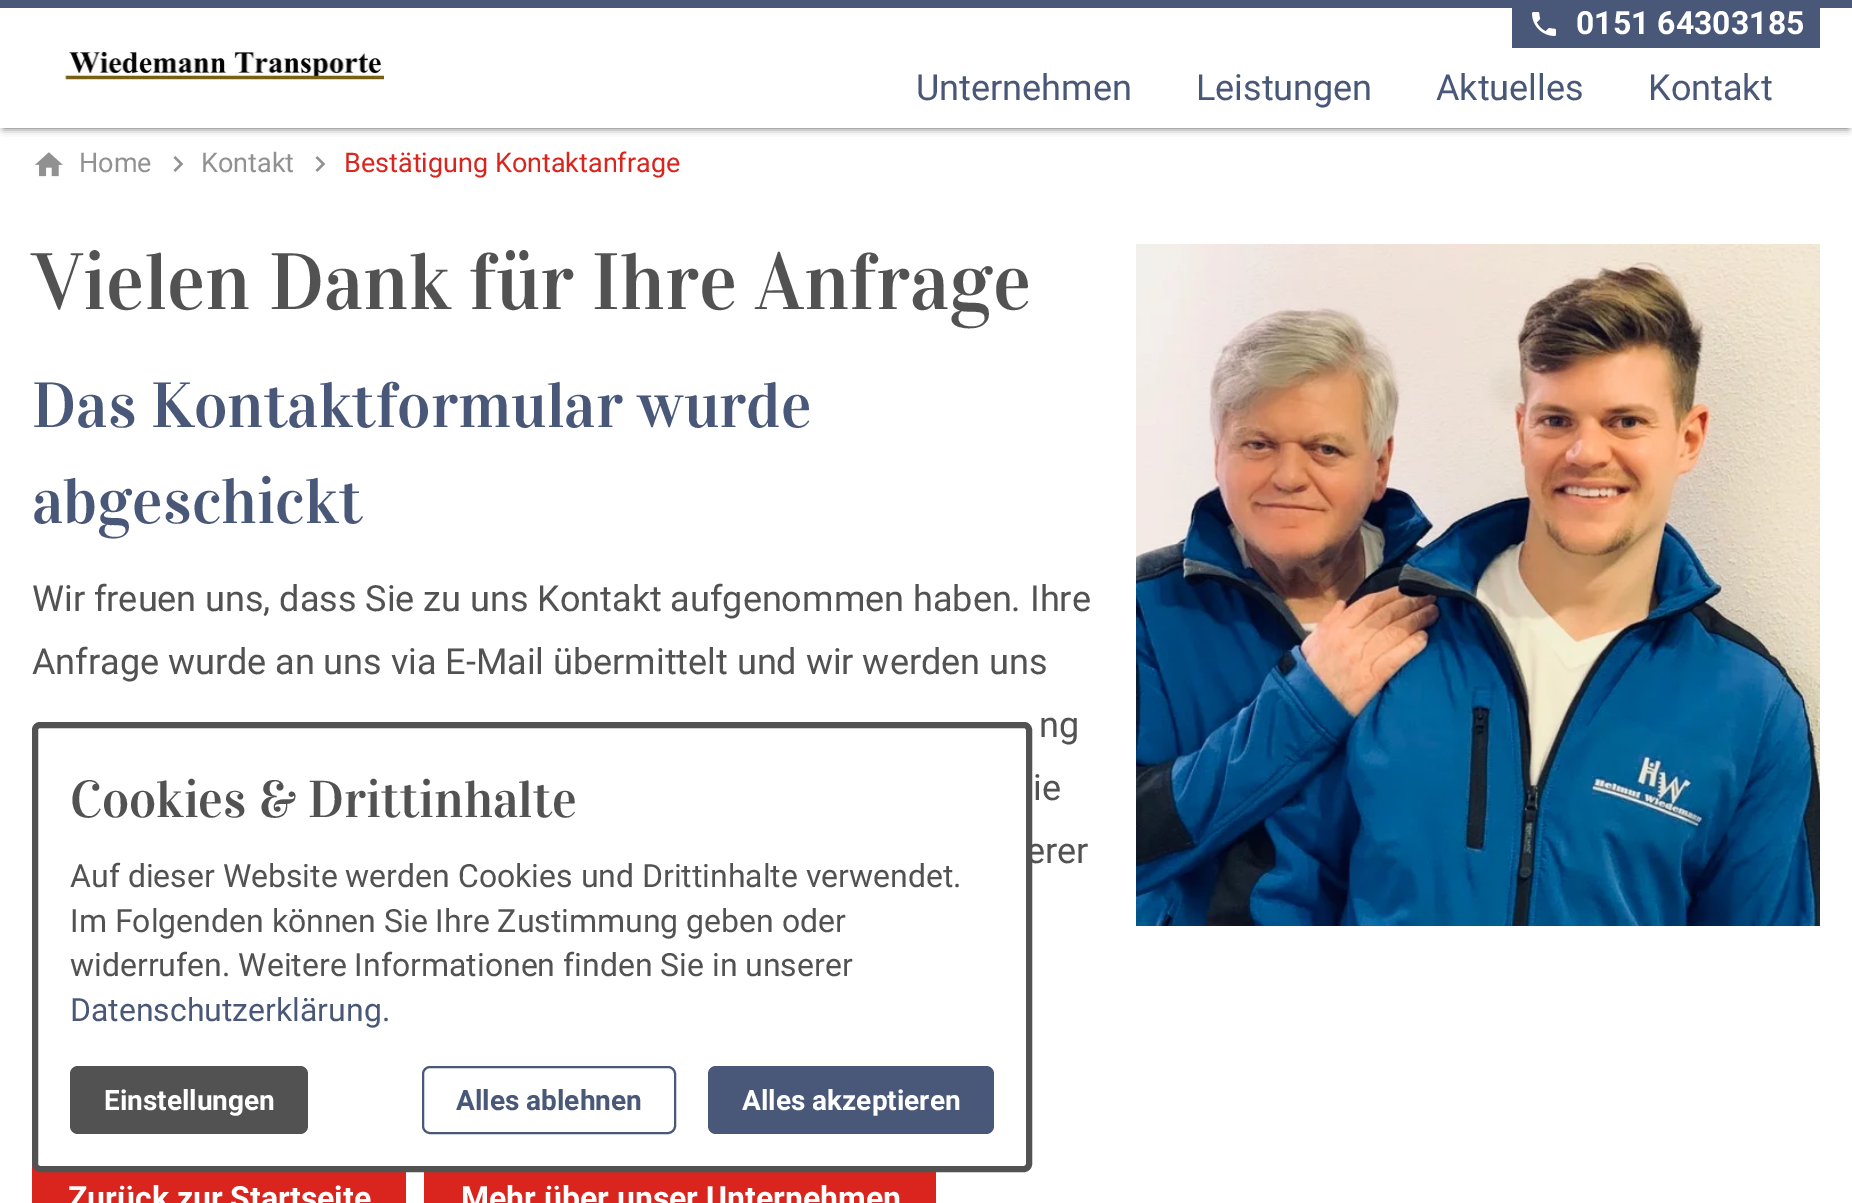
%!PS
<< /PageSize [1852 1203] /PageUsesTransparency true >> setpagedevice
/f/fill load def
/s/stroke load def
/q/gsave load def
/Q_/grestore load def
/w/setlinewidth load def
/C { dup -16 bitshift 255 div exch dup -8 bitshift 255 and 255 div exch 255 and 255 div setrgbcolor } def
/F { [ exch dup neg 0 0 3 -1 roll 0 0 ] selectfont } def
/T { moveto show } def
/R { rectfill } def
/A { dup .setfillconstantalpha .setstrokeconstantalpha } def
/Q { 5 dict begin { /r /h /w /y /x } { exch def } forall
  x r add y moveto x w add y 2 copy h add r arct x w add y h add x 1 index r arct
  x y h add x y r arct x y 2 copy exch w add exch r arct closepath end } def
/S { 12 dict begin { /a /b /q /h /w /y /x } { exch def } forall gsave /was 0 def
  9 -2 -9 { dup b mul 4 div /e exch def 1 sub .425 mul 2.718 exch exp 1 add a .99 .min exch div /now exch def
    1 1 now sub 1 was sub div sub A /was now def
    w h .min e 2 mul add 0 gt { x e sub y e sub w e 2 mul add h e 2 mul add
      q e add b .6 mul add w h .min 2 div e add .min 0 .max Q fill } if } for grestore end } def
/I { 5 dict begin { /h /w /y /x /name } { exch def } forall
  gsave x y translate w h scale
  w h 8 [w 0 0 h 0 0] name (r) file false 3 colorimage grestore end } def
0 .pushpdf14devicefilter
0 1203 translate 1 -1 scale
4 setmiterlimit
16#FFFFFF C
0 0 1852 1203 R
16#495778 C
0 0 1852 8 R
16#525252 C
4 16 1844 112 0 4 1 S
16#FFFFFF C
0 8 1852 120 R
16#495778 C
1512 8 308 40 R
(1.rgb) 1532 12 24 24 I
/Roboto-Bold 32 F
16#FFFFFF C
(0151 64303185) 1576 34 T
(2.rgb) 64 51 320 29 I
/Roboto-Regular 36 F
16#495778 C
(Unternehmen) 916 100 T
(Leistungen) 1196 100 T
(Aktuelles) 1436 100 T
(Kontakt) 1648 100 T
(3.rgb) 35 152 28 25 I
/Roboto-Regular 27 F
16#919191 C
(Home) 79 172 T
(4.rgb) 173 156 11 16 I
(Kontakt) 201 172 T
(4.rgb) 315 156 11 16 I
16#D9251E C
(Bestätigung Kontaktanfrage) 344 172 T
/Vidaloka-Regular 80 F
16#525252 C
(Vielen Dank für Ihre Anfrage) 32 309 T
/Vidaloka-Regular 64 F
16#495778 C
(Das Kontaktformular wurde) 32 427 T
(abgeschickt) 32 523 T
/Roboto-Regular 36 F
16#525252 C
(Wir freuen uns, dass Sie zu uns Kontakt aufgenommen haben. Ihre) 32 611 T
(Anfrage wurde an uns via E-Mail übermittelt und wir werden uns) 32 674 T
(ng) 1039 737 T
(ie) 1033 800 T
(erer) 1026 863 T
16#D9251E C
32 1164 374 39 R
/Roboto-Bold 32 F
16#FFFFFF C
(Zurück zur Startseite) 68 1209 T
16#D9251E C
424 1172 512 31 R
16#FFFFFF C
(Mehr über unser Unternehmen) 461 1209 T
(5.rgb) 1136 244 684 682 I
35 725 994 444 5 Q q f Q_
16#525252 C
6 w
s
/Vidaloka-Regular 52 F
(Cookies & Drittinhalte) 70 817 T
/Roboto-Regular 32 F
(Auf dieser Website werden Cookies und Drittinhalte verwendet.) 70 887 T
(Im Folgenden können Sie Ihre Zustimmung geben oder) 70 932 T
(widerrufen. Weitere Informationen finden Sie in unserer) 70 976 T
16#495778 C
(Datenschutzerklärung.) 70 1021 T
16#525252 C
70 1066 238 68 8 Q f
/Roboto-Bold 28 F
16#FFFFFF C
(Einstellungen) 104 1110 T
16#495778 C
2 w
423 1067 252 66 7 Q s
(Alles ablehnen) 456 1110 T
708 1066 286 68 8 Q f
16#FFFFFF C
(Alles akzeptieren) 742 1110 T
.poppdf14devicefilter showpage
